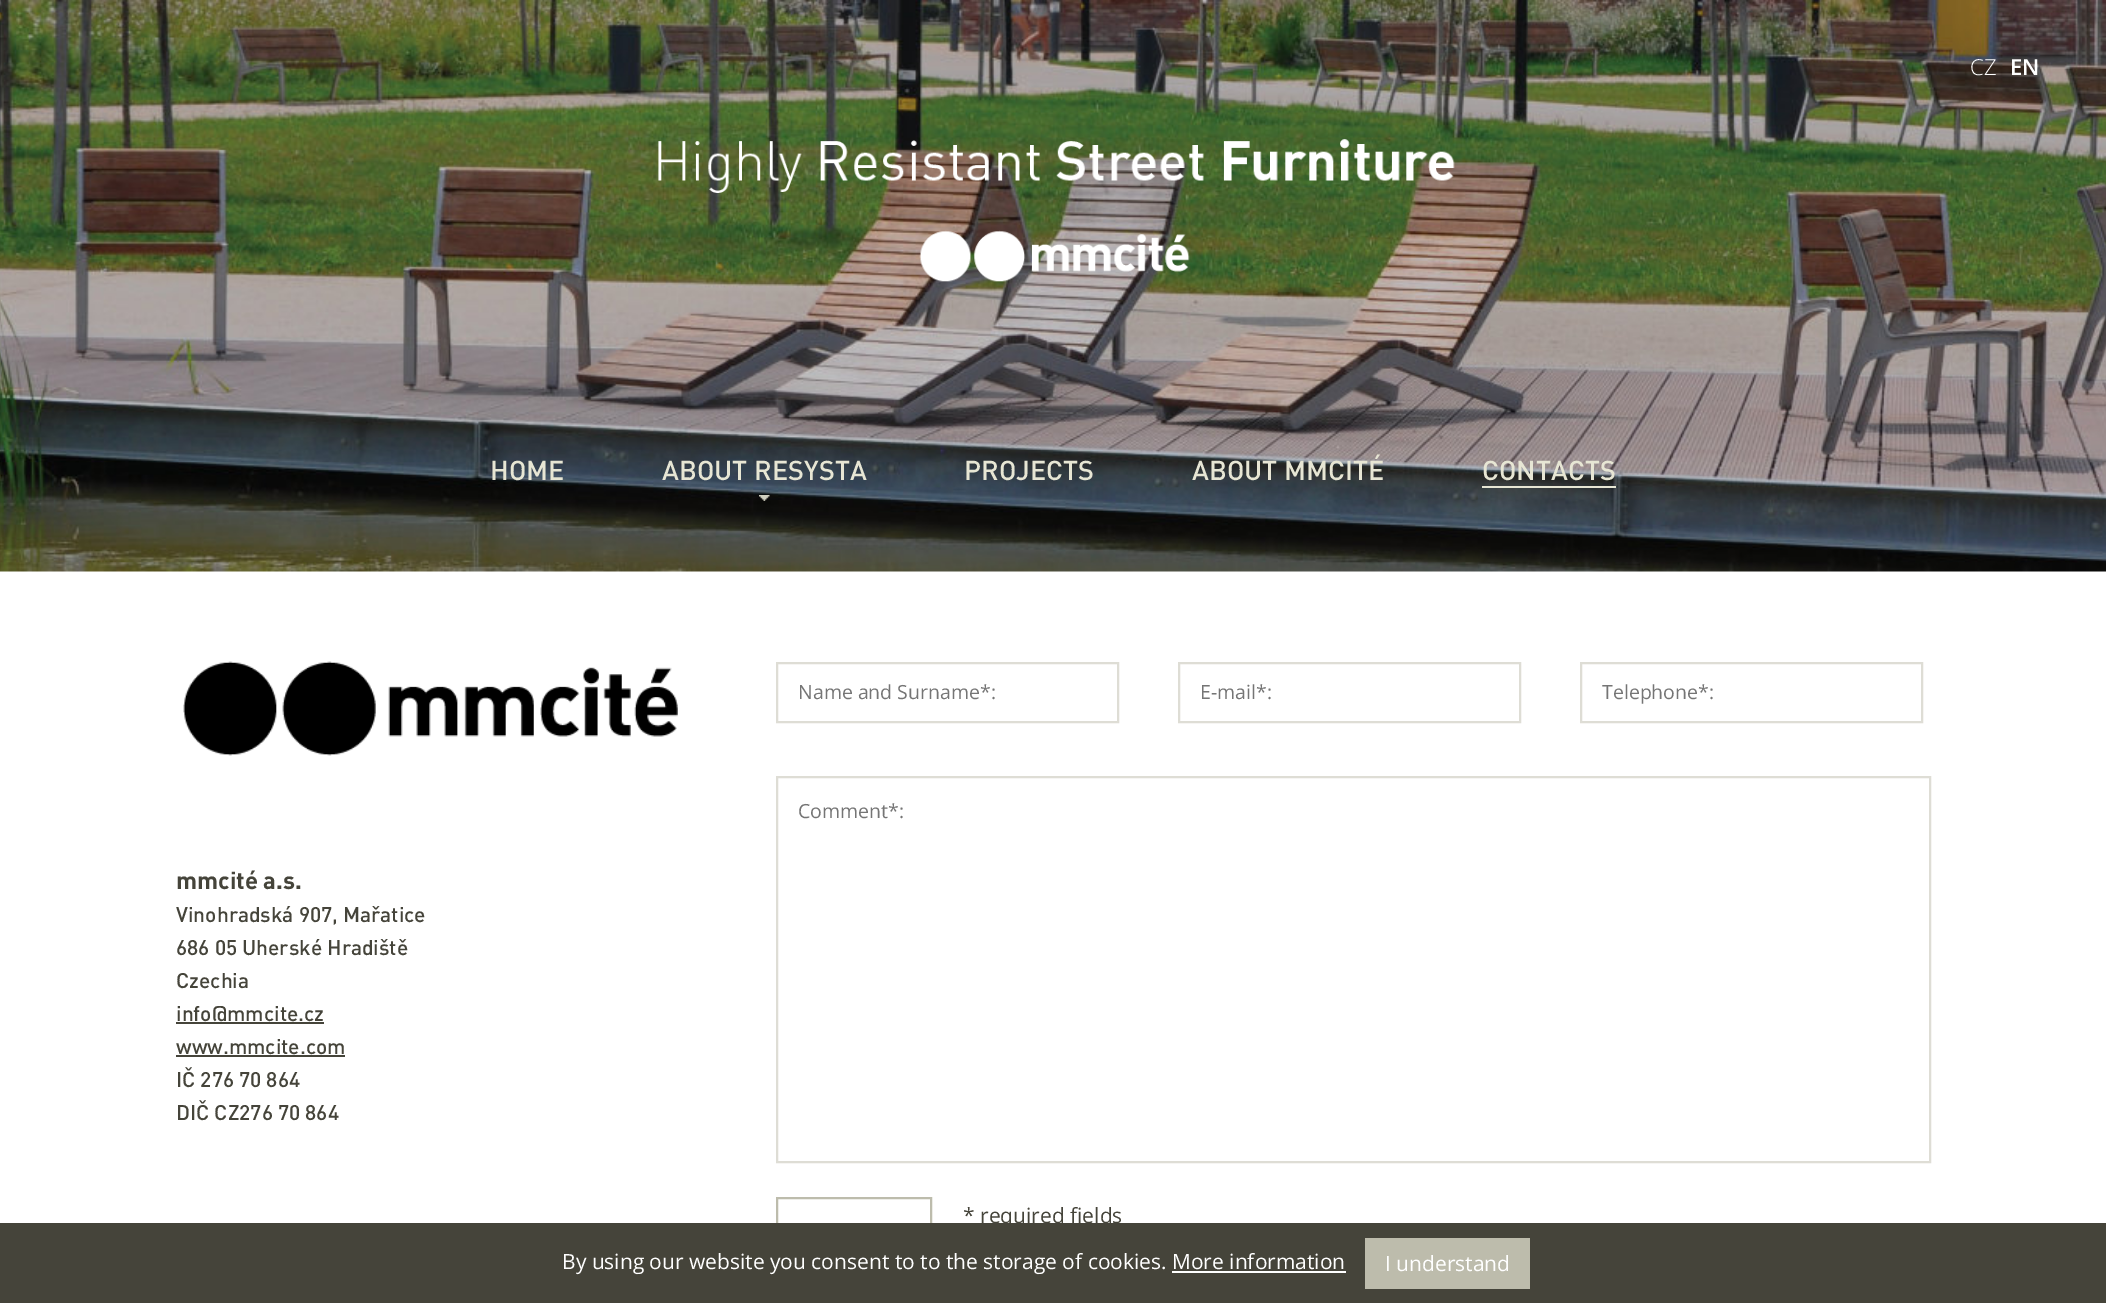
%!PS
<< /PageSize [2106 1303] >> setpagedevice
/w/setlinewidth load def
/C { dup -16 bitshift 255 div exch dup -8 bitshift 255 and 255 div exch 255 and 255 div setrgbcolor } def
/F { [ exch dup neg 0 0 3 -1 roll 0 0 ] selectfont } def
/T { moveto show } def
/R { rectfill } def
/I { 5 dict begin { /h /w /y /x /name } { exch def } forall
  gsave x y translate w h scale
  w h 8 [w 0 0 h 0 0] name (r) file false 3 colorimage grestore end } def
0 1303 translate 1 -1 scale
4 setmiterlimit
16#FFFFFF C
0 0 2106 1303 R
(1.rgb) 0 0 2106 572 I
/OpenSans-Light 22 F
(CZ) 1970 75 T
/OpenSans-SemiBold 22 F
(EN) 2010 75 T
(2.rgb) 658 139 797 143 I
/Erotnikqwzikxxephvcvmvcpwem-Medium 27 F
16#E7E6D4 C
(HOME) 490 480 T
(ABOUT RESYSTA) 662 480 T
(3.rgb) 759 495 11 6 I
(PROJECTS) 964 480 T
(ABOUT MMCITÉ) 1192 480 T
(CONTACTS) 1482 480 T
1482 486 134 2 R
(4.rgb) 183 661 495 95 I
/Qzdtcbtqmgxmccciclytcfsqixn-Bold 24 F
16#45443A C
(mmcité a.s.) 176 889 T
/Erotnikqwzikxxephvcvmvcpwem-Medium 21 F
(Vinohradská 907, Mařatice) 176 922 T
(686 05 Uherské Hradiště) 176 955 T
(Czechia) 176 988 T
(info@mmcite.cz) 176 1021 T
176 1022 148 2 R
(www.mmcite.com) 176 1054 T
176 1055 169 2 R
(IČ 276 70 864) 176 1087 T
(DIČ CZ276 70 864) 176 1120 T
16#DEDDD5 C
2 w
777 663 341 59 rectstroke
/OpenSans-Regular 19.5 F
16#757575 C
(Name and Surname*:) 798 699 T
16#DEDDD5 C
1179 663 341 59 rectstroke
16#757575 C
(E-mail*:) 1200 699 T
16#DEDDD5 C
1581 663 341 59 rectstroke
16#757575 C
(Telephone*:) 1602 699 T
16#DEDDD5 C
777 777 1153 385 rectstroke
16#757575 C
(Comment*:) 798 818 T
16#BDBCAC C
777 1198 154 51 rectstroke
/OpenSans-Regular 21 F
16#45443A C
(* required fields) 963 1223 T
0 1223 2106 80 R
16#FFFFFF C
(By using our website you consent to to the storage of cookies. More information) 562 1269 T
16#BDBCAC C
1365 1238 165 51 R
16#FFFFFF C
(I understand) 1385 1271 T
1172 1271 174 2 R
showpage
